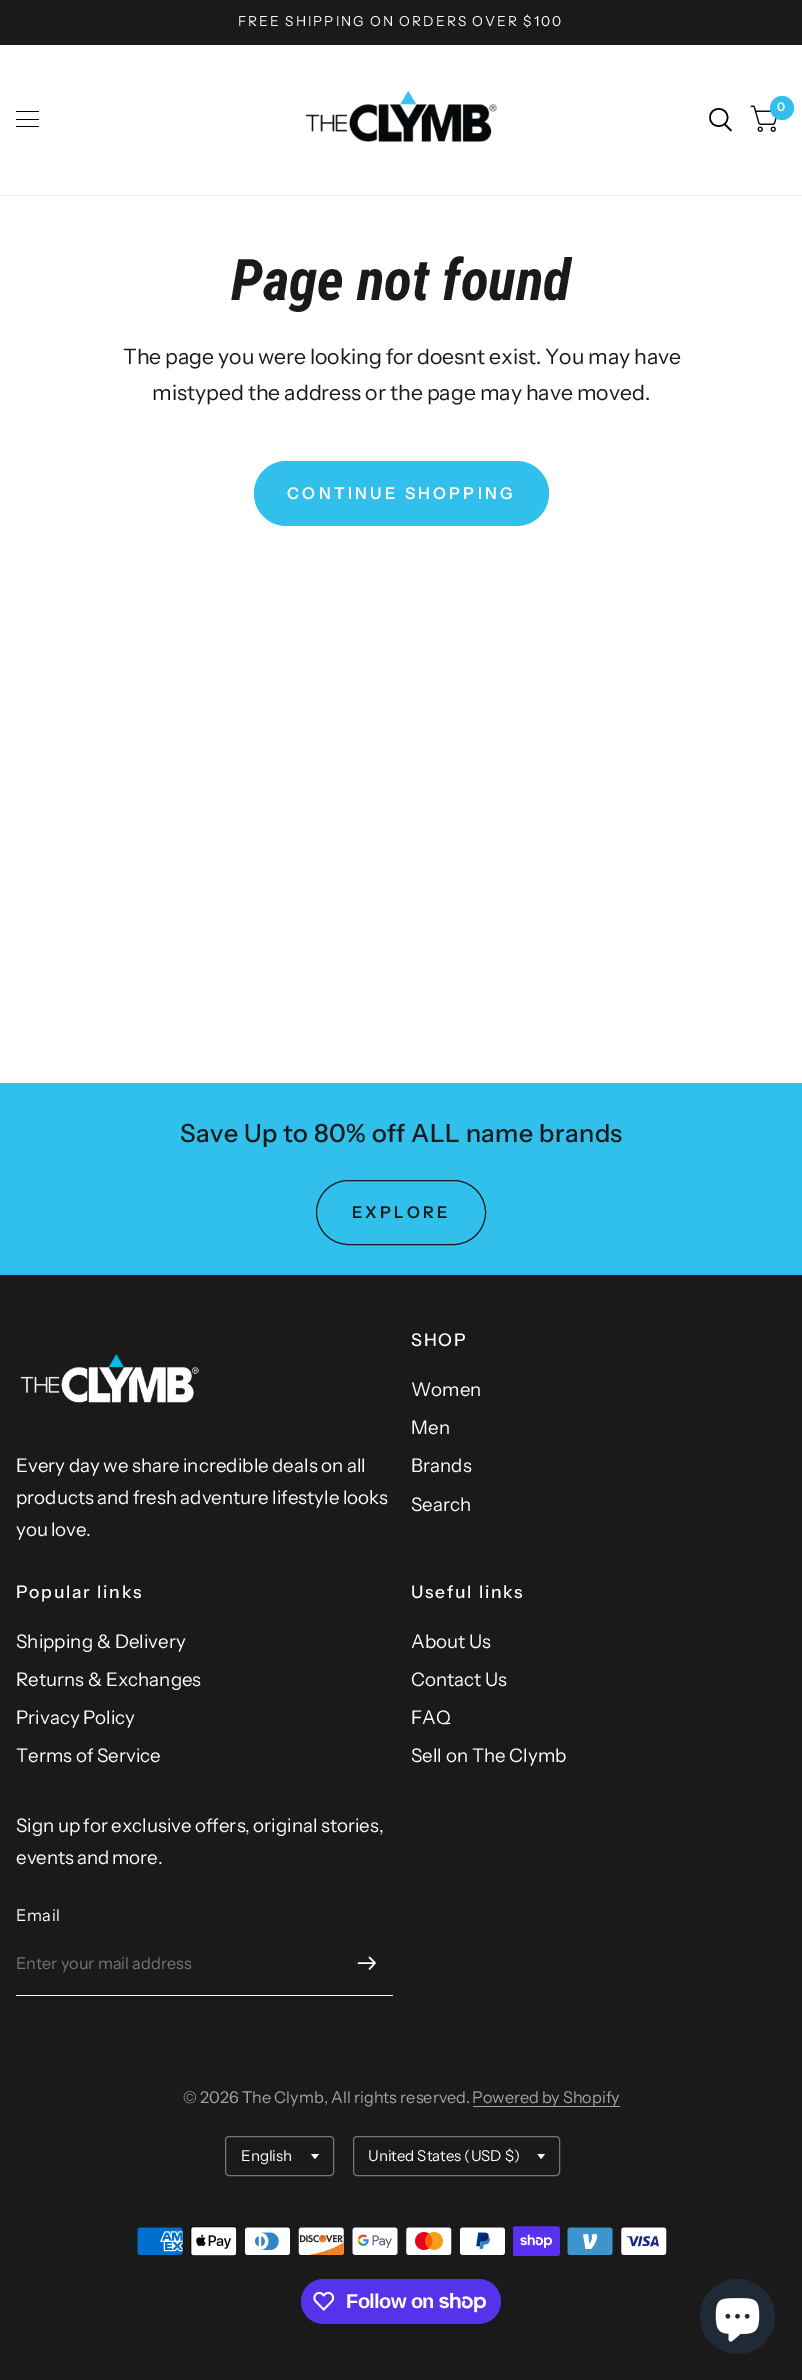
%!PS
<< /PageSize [802 2380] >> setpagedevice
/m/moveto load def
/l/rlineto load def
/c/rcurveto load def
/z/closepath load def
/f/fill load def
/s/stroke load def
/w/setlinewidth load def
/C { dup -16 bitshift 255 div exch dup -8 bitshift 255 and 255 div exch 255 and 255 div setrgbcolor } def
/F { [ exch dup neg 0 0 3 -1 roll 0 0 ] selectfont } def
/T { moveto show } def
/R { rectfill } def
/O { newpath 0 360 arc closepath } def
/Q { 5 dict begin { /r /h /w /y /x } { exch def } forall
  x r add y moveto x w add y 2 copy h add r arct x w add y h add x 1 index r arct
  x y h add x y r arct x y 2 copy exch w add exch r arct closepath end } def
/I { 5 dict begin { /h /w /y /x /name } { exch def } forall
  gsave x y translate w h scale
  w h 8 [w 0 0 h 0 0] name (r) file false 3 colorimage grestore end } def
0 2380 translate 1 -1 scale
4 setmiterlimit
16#FFFFFF C
0 0 802 2380 R
16#1A1A1A C
0 0 802 45 R
/InstrumentSans-Regular 13.75 F
16#FFFFFF C
238 26 m -.5 0 32 2.05 0 (FREE SHIPPING ON ORDERS OVER $100) awidthshow
16#EEEEEE C
0 195 802 1 R
(1.rgb) 305 90 192 52 I
(2.rgb) 750 105 27 27 I
16#31BFEC C
782 108 12 O f
/InstrumentSans-SemiBold 12 F
16#FFFFFF C
(0) 777 111 T
16#000000 C
1.5 w
1 setlinecap
1 setlinejoin
725 124.5 m 6 6 l 727.5 117.5 m 0 11.5 -17.5 11.5 -17.5 0 c 0 -11.5 17.5 -11.5 17.5 0 c z s
16 111 23 1 .5 Q f
16 119 23 1 .5 Q f
16 126 23 1 .5 Q f
/RobotoCondensed-BoldItalic 57.5 F
16#1A1A1A C
(Page not found) 231 300 T
/InstrumentSans-Regular 21.25 F
123 364 m -.5 0 32 (The page you were looking for doesnt exist. You may have) widthshow
152 400 m -.25 0 32 (mistyped the address or the page may have moved.) widthshow
16#31BFEC C
254 461 295 65 32.5 Q f
/InstrumentSans-SemiBold 16.25 F
16#FFFFFF C
287 499 m 3.25 0 (CONTINUE SHOPPING) ashow
16#31BFEC C
0 1083 802 192 R
/InstrumentSans-Medium 25 F
16#1A1A1A C
180 1142 m -.25 0 32 .5 0 (Save Up to 80% off ALL name brands) awidthshow
1 w
0 setlinecap
0 setlinejoin
316.5 1180.5 169 64 32 Q s
/InstrumentSans-SemiBold 16.25 F
352 1218 m 3.25 0 (EXPLORE) ashow
0 1275 802 1105 R
(3.rgb) 20 1354 179 49 I
/InstrumentSans-Regular 18.75 F
16#FFFFFF C
16 1472 m -.25 0 32 (Every day we share incredible deals on all) widthshow
16 1504 m -.5 0 32 (products and fresh adventure lifestyle looks) widthshow
16 1536 m -1 0 32 (you love.) widthshow
/InstrumentSans-Medium 17.5 F
411 1346 m 1.75 0 (SHOP) ashow
/InstrumentSans-Regular 18.75 F
(Women) 411 1396 T
(Men) 411 1434 T
(Brands) 411 1472 T
(Search) 411 1511 T
/InstrumentSans-Medium 17.5 F
16 1598 m 1.75 0 (Popular links) ashow
/InstrumentSans-Regular 18.75 F
(Shipping & Delivery) 16 1648 T
(Returns & Exchanges) 16 1686 T
(Privacy Policy) 16 1724 T
(Terms of Service) 16 1762 T
/InstrumentSans-Medium 17.5 F
411 1598 m 1.75 0 (Useful links) ashow
/InstrumentSans-Regular 18.75 F
(About Us) 411 1648 T
(Contact Us) 411 1686 T
(FAQ) 411 1724 T
(Sell on The Clymb) 411 1762 T
16 1832 m -.5 0 32 (Sign up for exclusive offers, original stories,) widthshow
16 1864 m -1 0 32 (events and more.) widthshow
/InstrumentSans-Regular 16.25 F
16 1921 m .5 0 (Email) ashow
16 1995 377 1 R
16#767676 C
(Enter your mail address) 16 1969 T
16#FFFFFF C
1.5 w
1 setlinecap
1 setlinejoin
358.5 1963 m 15 0 l 369.5 1957.5 m 5.5 5.5 l -5.5 6 l s
16#A3A3A3 C
(© 2026 The Clymb, All rights reserved.) 183 2103 T
473 2106 147 1 R
472 2103 m -.5 0 32 (Powered by Shopify) widthshow
16#767676 C
1 w
0 setlinecap
0 setlinejoin
225.5 2136.5 108 39 3.5 Q s
/InstrumentSans-Regular 15 F
16#FFFFFF C
(English) 241 2161 T
311 2154 m 8 0 l -4 5 l z f
16#767676 C
353.5 2136.5 206 39 3.5 Q s
16#FFFFFF C
(United States \(USD $\)) 368 2161 T
537.5 2154 m 7.5 0 l -4 5 l z f
(4.rgb) 137 2227 46 28 I
(5.rgb) 190 2226 48 30 I
(6.rgb) 245 2227 45 28 I
(7.rgb) 298 2227 46 28 I
(8.rgb) 352 2227 46 28 I
(9.rgb) 406 2227 46 28 I
(10.rgb) 460 2227 45 28 I
(11.rgb) 513 2226 47 30 I
(12.rgb) 567 2227 46 28 I
(13.rgb) 621 2227 46 28 I
16#5433EB C
301 2279 200 45 22.5 Q f
(14.rgb) 313 2291 22 20 I
/LiberationSans-Bold 20 F
16#FFFFFF C
346 2308 m -.6 0 (Follow on) ashow
(15.rgb) 439 2293 47 20 I
16#202A36 C
737.5 2316.5 37.5 O f
(16.rgb) 715 2298 45 44 I
showpage
